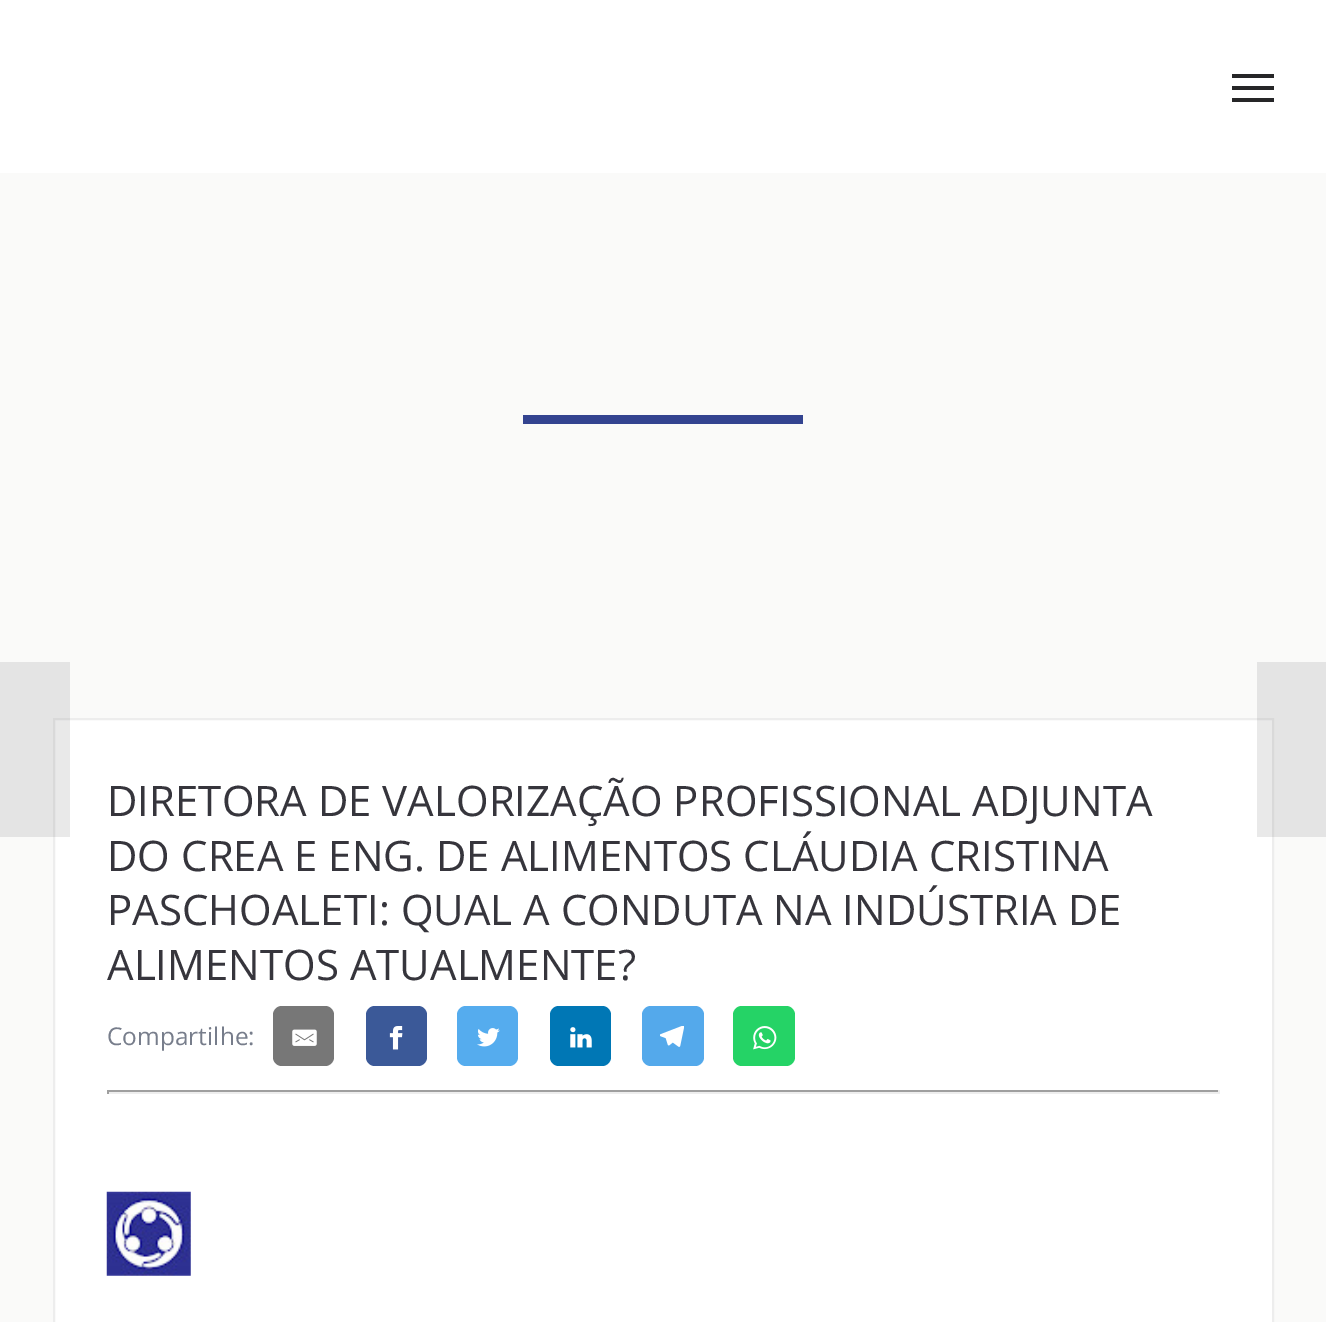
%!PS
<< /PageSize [1326 1322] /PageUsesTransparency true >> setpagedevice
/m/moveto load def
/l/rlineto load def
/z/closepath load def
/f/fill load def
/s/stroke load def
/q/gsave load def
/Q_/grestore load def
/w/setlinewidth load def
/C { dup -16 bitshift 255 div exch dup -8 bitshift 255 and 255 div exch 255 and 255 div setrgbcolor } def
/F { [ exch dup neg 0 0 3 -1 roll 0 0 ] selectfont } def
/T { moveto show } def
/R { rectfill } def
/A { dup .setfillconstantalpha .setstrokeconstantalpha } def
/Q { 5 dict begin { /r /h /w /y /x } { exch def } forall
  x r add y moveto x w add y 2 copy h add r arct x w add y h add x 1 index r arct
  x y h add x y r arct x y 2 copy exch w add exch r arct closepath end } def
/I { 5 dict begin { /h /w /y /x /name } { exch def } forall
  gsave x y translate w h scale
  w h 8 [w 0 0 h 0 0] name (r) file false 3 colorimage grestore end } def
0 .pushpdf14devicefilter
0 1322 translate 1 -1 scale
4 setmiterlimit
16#FAFAF9 C
0 0 1326 1322 R
16#FFFFFF C
0 0 1326 173 R
16#262628 C
1232 74 42 4 R
1232 86 42 4 R
1232 98 42 4 R
16#334390 C
523 415 280 9 R
16#FFFFFF C
54 719 m 1219 0 l 0 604 l -1219 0 l z q f Q_
16#EDEDED C
2 w
s
0.1 A
16#262628 C
0 662 70 175 R
1257 662 69 175 R
/OpenSans-Regular 42 F
1 A
16#36353C C
(DIRETORA DE VALORIZAÇÃO PROFISSIONAL ADJUNTA) 107 816 T
(DO CREA E ENG. DE ALIMENTOS CLÁUDIA CRISTINA) 107 871 T
(PASCHOALETI: QUAL A CONDUTA NA INDÚSTRIA DE) 107 925 T
(ALIMENTOS ATUALMENTE?) 107 980 T
/OpenSans-Regular 24.5 F
16#777D8B C
(Compartilhe:) 107 1045 T
16#777777 C
273 1006 61 60 9 Q f
(1.rgb) 292 1029 25 17 I
16#3B5998 C
366 1006 61 60 9 Q f
(2.rgb) 389 1026 14 24 I
16#55ACEE C
457 1006 61 60 9 Q f
(3.rgb) 477 1028 23 19 I
16#0077B5 C
550 1006 61 60 9 Q f
(4.rgb) 570 1027 22 21 I
16#54A9EB C
642 1006 62 60 9 Q f
(5.rgb) 660 1026 24 21 I
16#25D366 C
733 1006 62 60 9 Q f
(6.rgb) 753 1026 24 24 I
16#9F9F9F C
107 1090 1113 2 R
16#EEEEEE C
1218 1090 2 4 R
107 1092 1113 2 R
16#9F9F9F C
107 1090 2 4 R
(7.rgb) 106 1191 85 85 I
.poppdf14devicefilter showpage
